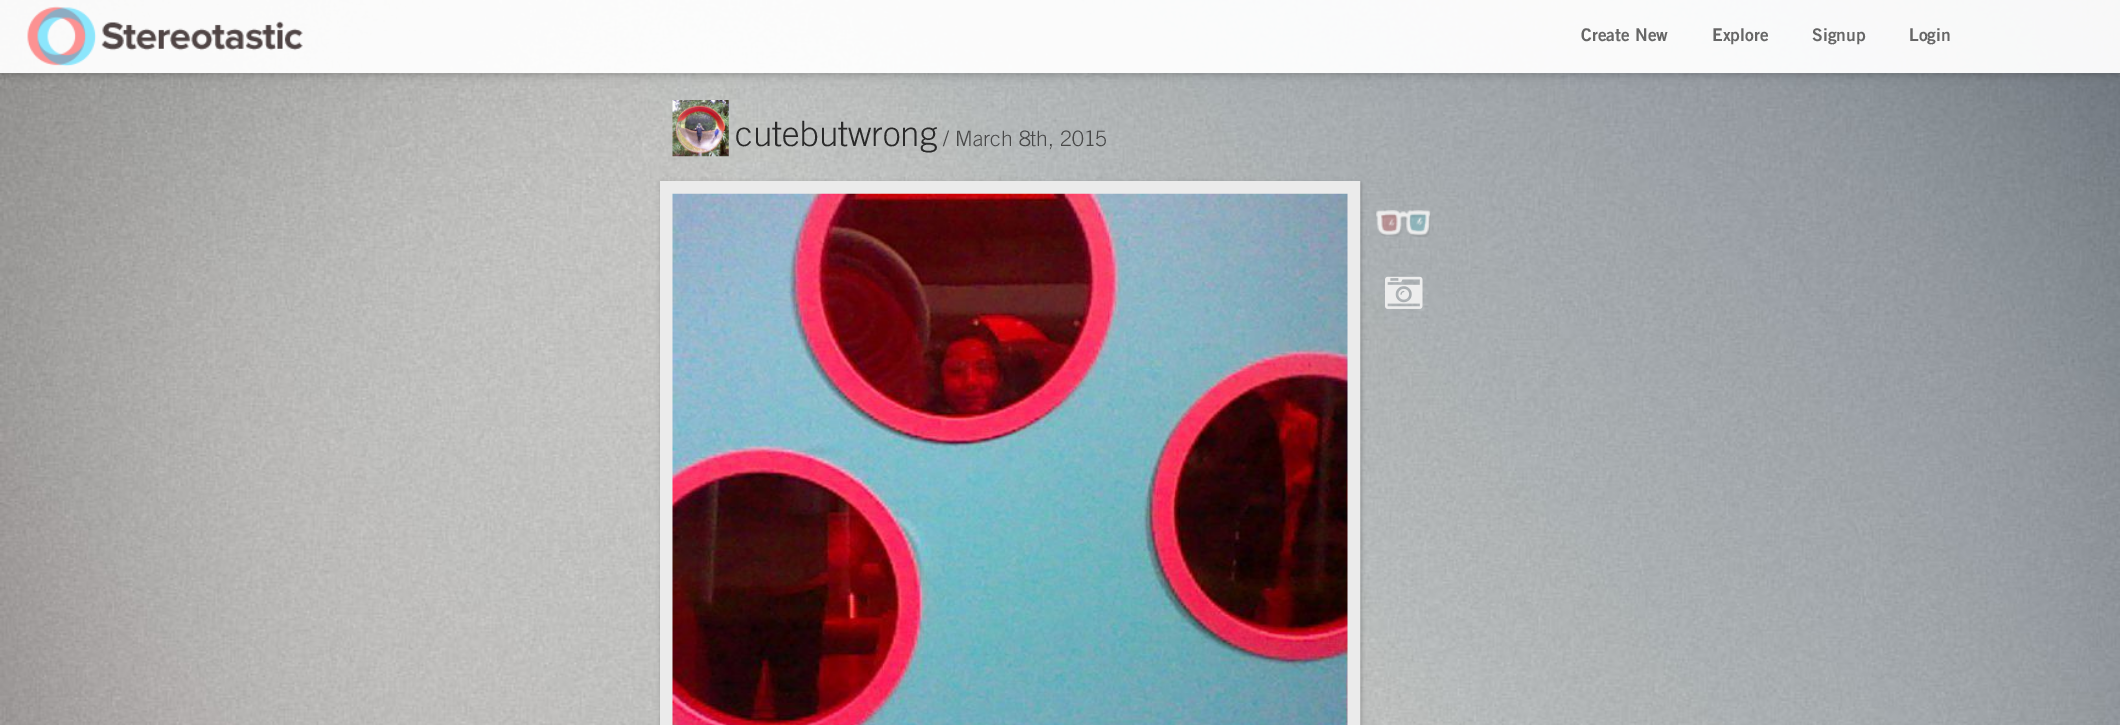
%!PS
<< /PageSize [2120 725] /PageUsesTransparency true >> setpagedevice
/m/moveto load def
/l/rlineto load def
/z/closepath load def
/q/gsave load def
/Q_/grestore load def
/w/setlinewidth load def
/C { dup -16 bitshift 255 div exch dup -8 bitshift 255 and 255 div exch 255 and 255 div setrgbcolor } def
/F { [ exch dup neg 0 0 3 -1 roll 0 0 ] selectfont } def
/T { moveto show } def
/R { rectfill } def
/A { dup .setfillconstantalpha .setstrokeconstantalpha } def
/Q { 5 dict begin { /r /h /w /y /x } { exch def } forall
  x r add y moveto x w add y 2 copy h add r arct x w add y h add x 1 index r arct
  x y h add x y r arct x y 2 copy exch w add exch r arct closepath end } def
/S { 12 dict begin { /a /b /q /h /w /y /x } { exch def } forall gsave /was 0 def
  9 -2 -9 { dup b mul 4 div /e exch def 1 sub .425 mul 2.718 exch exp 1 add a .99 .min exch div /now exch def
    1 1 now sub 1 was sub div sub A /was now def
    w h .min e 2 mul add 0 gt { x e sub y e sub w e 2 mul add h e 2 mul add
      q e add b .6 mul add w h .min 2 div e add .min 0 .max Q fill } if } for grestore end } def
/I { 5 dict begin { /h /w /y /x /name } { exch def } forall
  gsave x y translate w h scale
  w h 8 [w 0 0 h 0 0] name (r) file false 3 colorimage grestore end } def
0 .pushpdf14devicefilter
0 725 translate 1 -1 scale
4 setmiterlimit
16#FFFFFF C
0 0 2120 725 R
(2.rgb) 0 0 2120 725 I
q
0 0 m 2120 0 l 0 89 l -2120 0 l z 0 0 m 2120 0 l 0 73 l -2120 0 l z eoclip newpath
16#000000 C
0 1 2120 73 0 4.5 .25 S
Q_
0.95 A
0 0 2120 73 R
1 A
(1.rgb) 27 6 276 60 I
/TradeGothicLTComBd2-Regular 17.5 F
16#666666 C
(Create New) 1581 41 T
(Explore) 1712 41 T
(Signup) 1812 41 T
(Login) 1909 41 T
(3.rgb) 672 100 57 57 I
/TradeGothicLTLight-Light 35 F
16#292929 C
(cutebutwrong) 735 146 T
/TradeGothicLTLight-Light 21.25 F
16#484848 C
(/ March 8th, 2015) 943 146 T
16#000000 C
661 183 700 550 0 2.5 .25 S
16#EBEBEB C
13 w
666.5 187.5 687 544 rectstroke
(4.rgb) 672 193 676 532 I
(5.rgb) 1376 210 55 27 I
(6.rgb) 1385 276 38 33 I
.poppdf14devicefilter showpage
